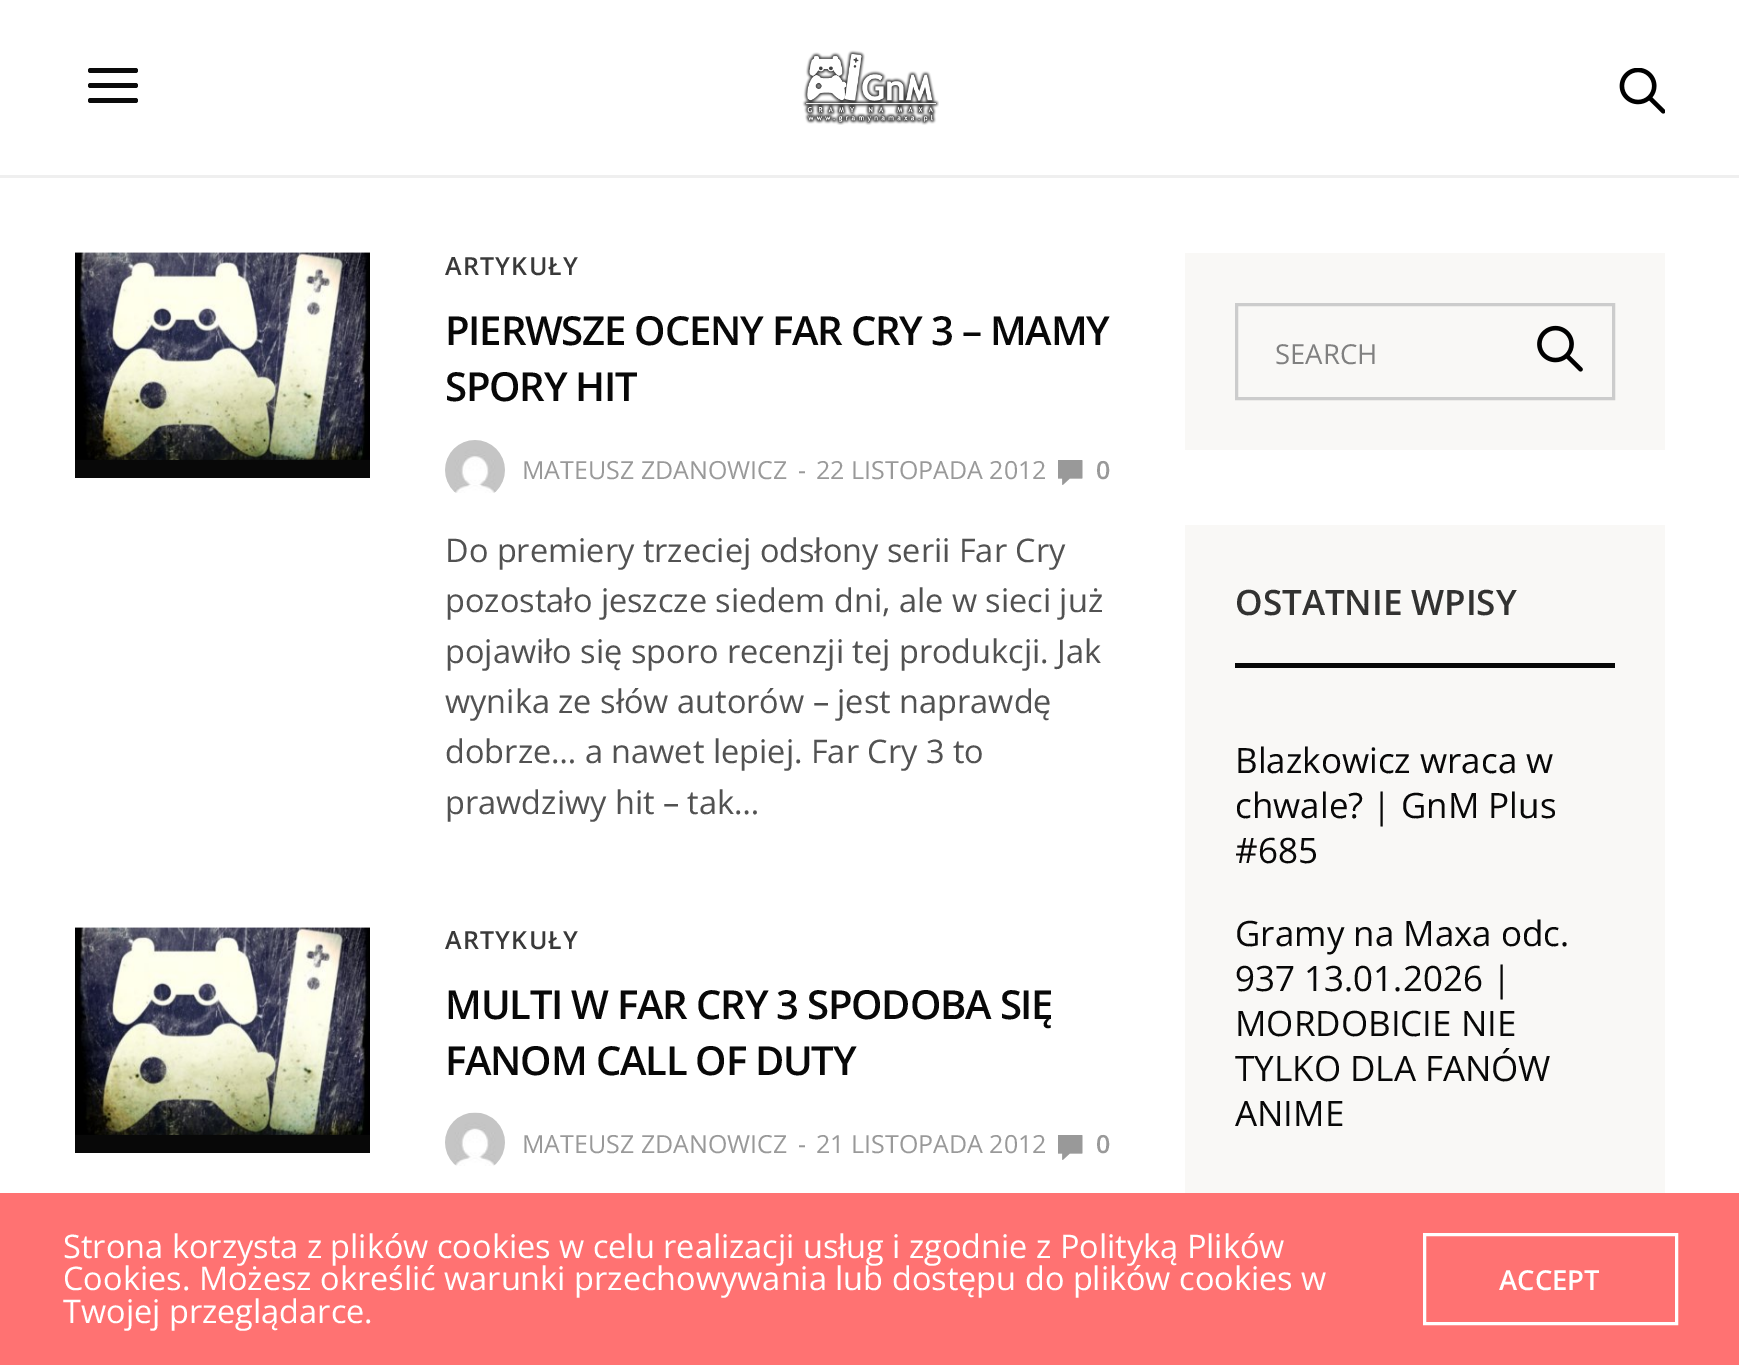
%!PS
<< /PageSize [1739 1365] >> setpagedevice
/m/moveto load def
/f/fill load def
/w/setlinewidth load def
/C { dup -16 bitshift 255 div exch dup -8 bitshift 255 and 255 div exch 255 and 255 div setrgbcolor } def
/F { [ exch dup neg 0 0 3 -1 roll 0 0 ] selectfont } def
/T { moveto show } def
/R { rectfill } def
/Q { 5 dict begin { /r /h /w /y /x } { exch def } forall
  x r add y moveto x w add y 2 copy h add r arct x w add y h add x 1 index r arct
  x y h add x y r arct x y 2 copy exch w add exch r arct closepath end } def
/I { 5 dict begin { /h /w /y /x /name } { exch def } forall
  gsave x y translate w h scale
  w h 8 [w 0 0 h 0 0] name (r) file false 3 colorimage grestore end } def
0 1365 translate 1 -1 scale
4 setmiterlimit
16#FFFFFF C
0 0 1739 1365 R
16#EFEFEF C
0 175 1739 3 R
16#0A0A0A C
88 68 50 5 2.5 Q f
88 83 50 5 2.5 Q f
88 98 50 5 2.5 Q f
(1.rgb) 802 50 137 75 I
(2.rgb) 1619 68 46 46 I
16#080808 C
75 459 295 19 R
(3.rgb) 75 252 295 208 I
/OpenSans-SemiBold 25 F
16#393939 C
445 275 m 1.25 0 (ARTYKUŁY) ashow
/OpenSans-SemiBold 40 F
16#080808 C
445 345 m -1.2 0 (PIERWSZE OCENY FAR CRY 3 – MAMY) ashow
445 401 m -1.2 0 (SPORY HIT) ashow
(4.rgb) 445 440 60 53 I
/OpenSans-Regular 25 F
16#999999 C
(MATEUSZ ZDANOWICZ) 522 479 T
(-) 798 479 T
(22 LISTOPADA 2012) 816 479 T
(5.rgb) 1058 460 25 25 I
/OpenSans-SemiBold 25 F
(0) 1096 479 T
/OpenSans-Regular 32.5 F
16#525252 C
(Do premiery trzeciej odsłony serii Far Cry) 445 562 T
(pozostało jeszcze siedem dni, ale w sieci już) 445 612 T
(pojawiło się sporo recenzji tej produkcji. Jak) 445 663 T
(wynika ze słów autorów – jest naprawdę) 445 713 T
(dobrze… a nawet lepiej. Far Cry 3 to) 445 763 T
(prawdziwy hit – tak…) 445 814 T
16#080808 C
75 1134 295 19 R
(3.rgb) 75 927 295 208 I
/OpenSans-SemiBold 25 F
16#393939 C
445 949 m 1.25 0 (ARTYKUŁY) ashow
/OpenSans-SemiBold 40 F
16#080808 C
445 1019 m -1.2 0 (MULTI W FAR CRY 3 SPODOBA SIĘ) ashow
445 1075 m -1.2 0 (FANOM CALL OF DUTY) ashow
(6.rgb) 445 1112 60 54 I
/OpenSans-Regular 25 F
16#999999 C
(MATEUSZ ZDANOWICZ) 522 1153 T
(-) 798 1153 T
(21 LISTOPADA 2012) 816 1153 T
(5.rgb) 1058 1135 25 25 I
/OpenSans-SemiBold 25 F
(0) 1096 1153 T
16#F9F8F6 C
1185 253 480 197 R
16#CCCCCC C
3 w
1236.5 304.5 377 94 rectstroke
/OpenSans-Regular 27.5 F
16#808080 C
(SEARCH) 1275 364 T
(7.rgb) 1537 325 46 47 I
16#F9F8F6 C
1185 525 480 668 R
16#080808 C
1235 663 380 5 R
/OpenSans-SemiBold 35 F
16#323231 C
(OSTATNIE WPISY) 1235 615 T
/OpenSans-Regular 35 F
16#080808 C
(Blazkowicz wraca w) 1235 773 T
(chwale? | GnM Plus) 1235 818 T
(#685) 1235 863 T
(Gramy na Maxa odc.) 1235 946 T
(937 13.01.2026 |) 1235 991 T
(MORDOBICIE NIE) 1235 1036 T
(TYLKO DLA FANÓW) 1235 1081 T
(ANIME) 1235 1126 T
16#FF7272 C
0 1193 1739 172 R
/OpenSans-Regular 32.5 F
16#FFFFFF C
(Strona korzysta z plików cookies w celu realizacji usług i zgodnie z Polityką Plików) 63 1258 T
(Cookies. Możesz określić warunki przechowywania lub dostępu do plików cookies w) 63 1290 T
(Twojej przeglądarce.) 63 1323 T
1424.5 1234.5 252 89 rectstroke
/OpenSans-SemiBold 27.5 F
(ACCEPT) 1499 1290 T
showpage
